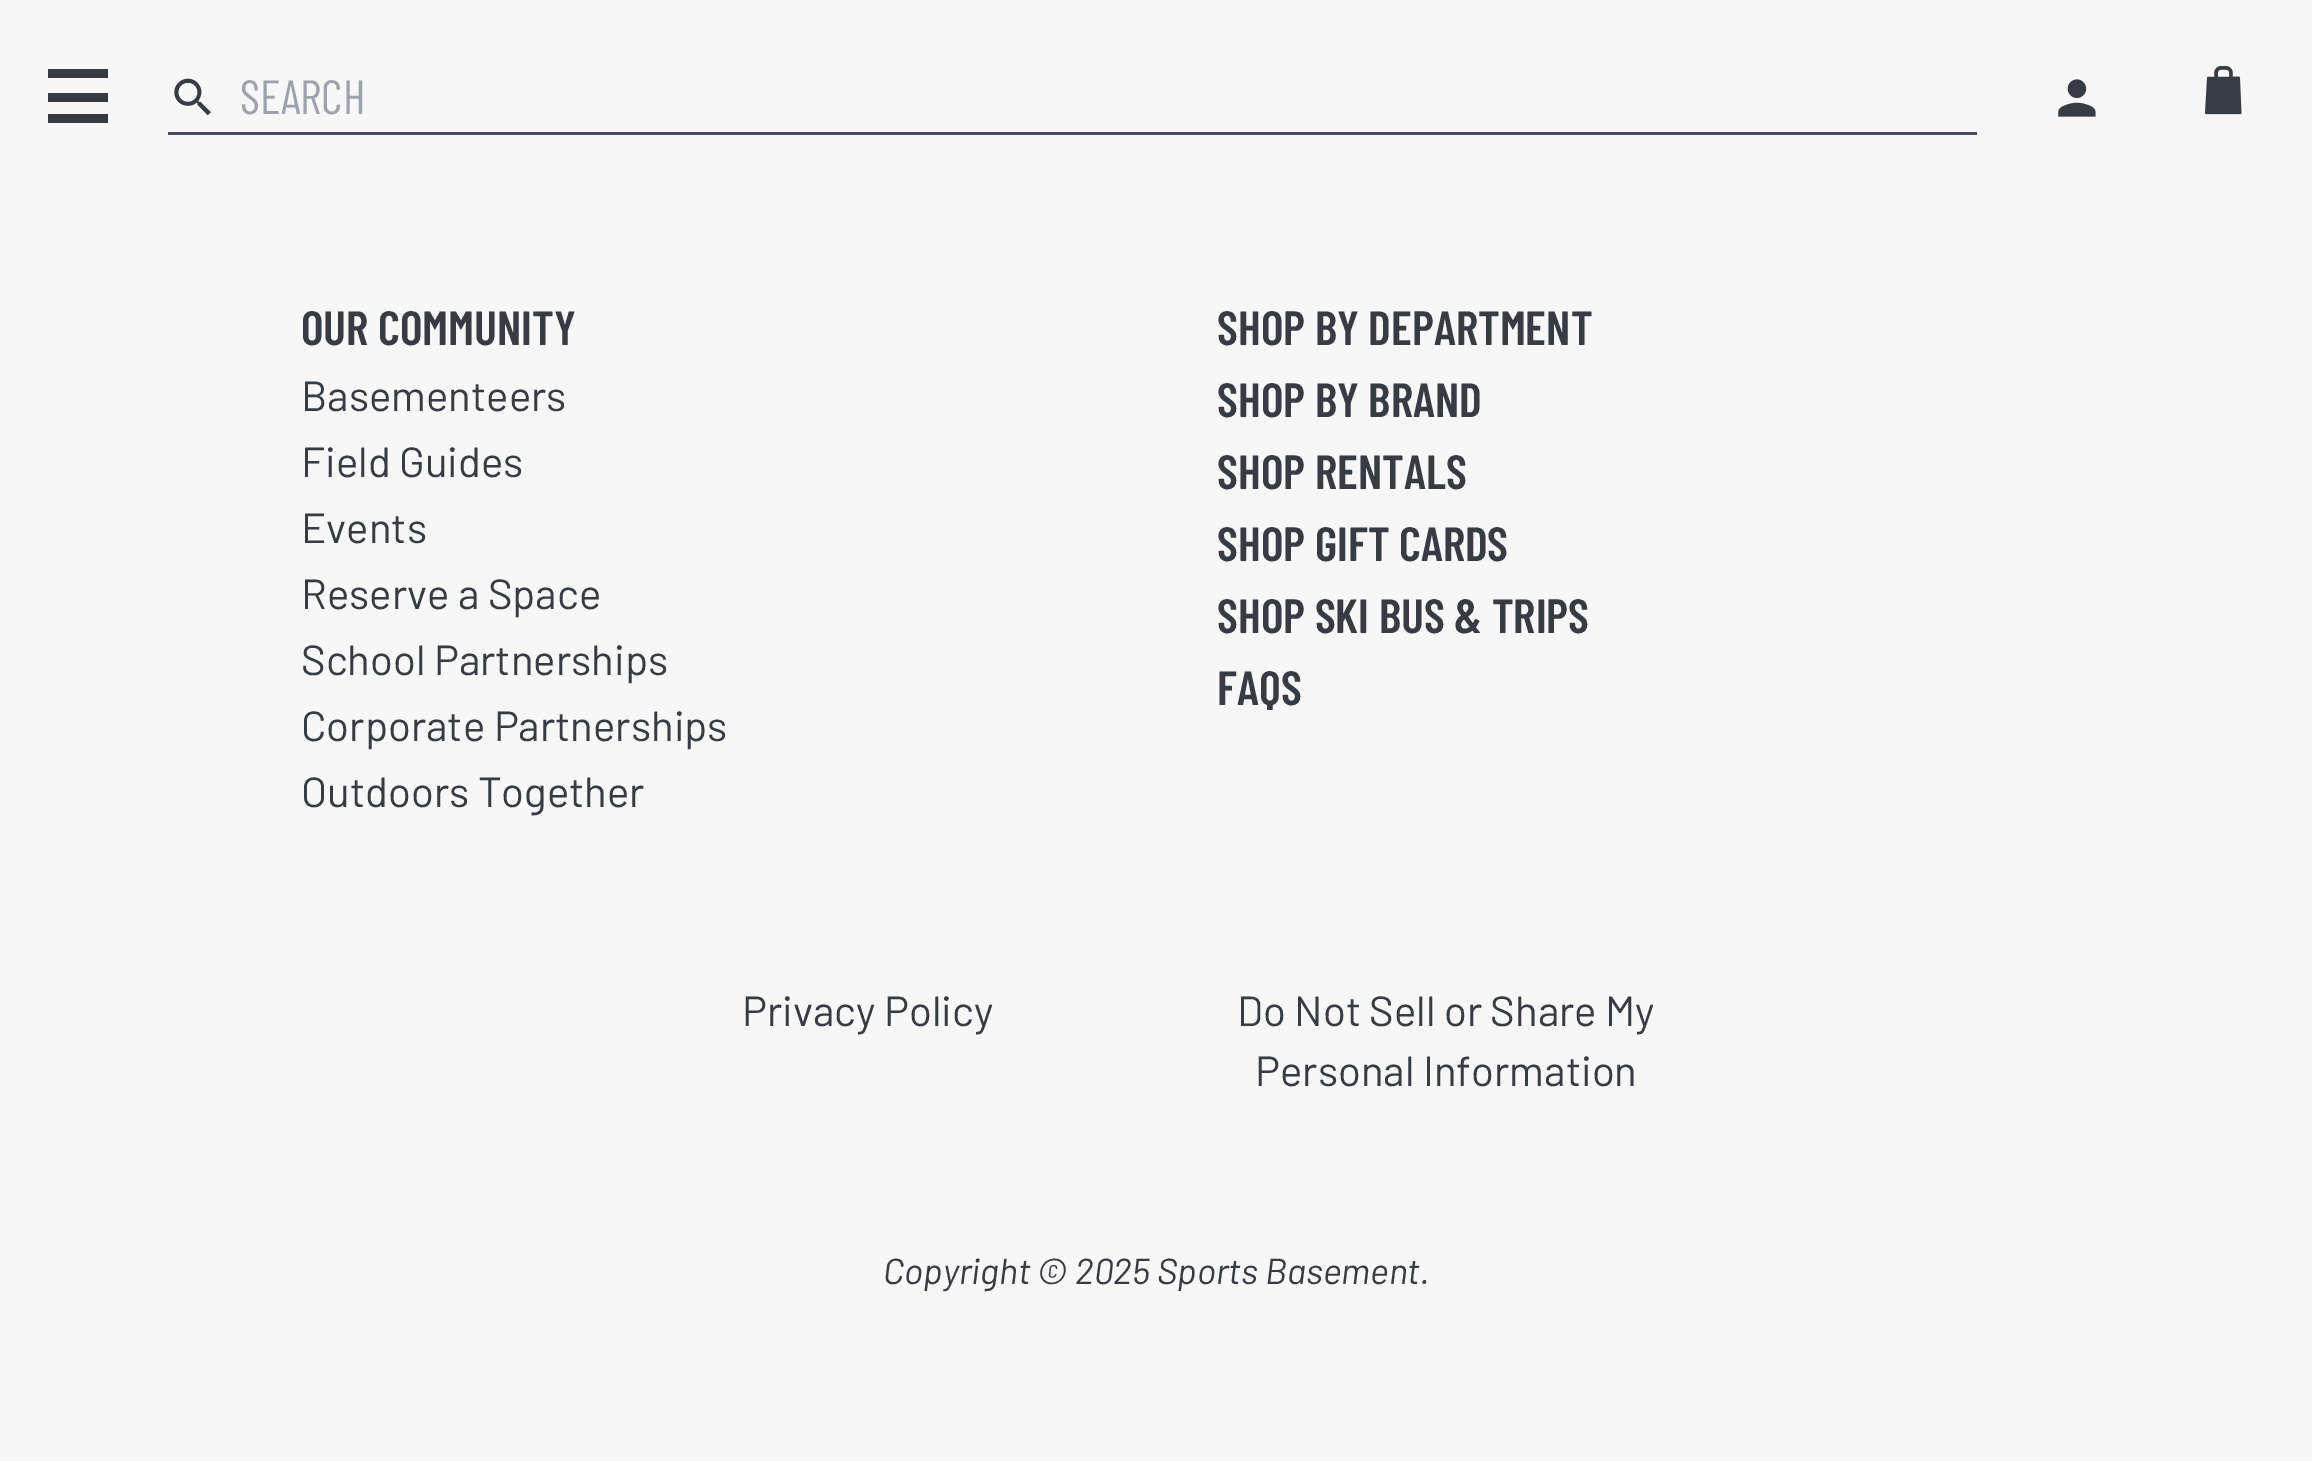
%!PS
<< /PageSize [2312 1461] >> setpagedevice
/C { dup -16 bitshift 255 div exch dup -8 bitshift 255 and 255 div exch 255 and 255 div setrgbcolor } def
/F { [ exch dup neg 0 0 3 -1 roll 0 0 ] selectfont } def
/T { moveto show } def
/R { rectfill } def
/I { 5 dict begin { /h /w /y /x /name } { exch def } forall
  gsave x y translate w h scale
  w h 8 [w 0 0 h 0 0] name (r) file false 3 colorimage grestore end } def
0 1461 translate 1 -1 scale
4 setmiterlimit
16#F7F7F7 C
0 0 2312 1461 R
16#363B44 C
48 69 60 9 R
48 93 60 9 R
48 114 60 9 R
(1.rgb) 174 78 37 38 I
16#474E5D C
168 132 1809 3 R
/BarlowCondensed-Regular 48 F
16#9CA3AF C
(SEARCH) 240 114 T
(2.rgb) 2058 79 38 38 I
(3.rgb) 2205 66 37 49 I
/BarlowCondensed-SemiBold 48 F
16#363B44 C
(OUR COMMUNITY) 301 345 T
/Barlow-Regular 42 F
(Basementeers) 301 411 T
(Field Guides) 301 477 T
(Events) 301 543 T
(Reserve a Space) 301 609 T
(School Partnerships) 301 675 T
(Corporate Partnerships) 301 741 T
(Outdoors Together) 301 807 T
/BarlowCondensed-SemiBold 48 F
(SHOP BY DEPARTMENT) 1217 345 T
(SHOP BY BRAND) 1217 417 T
(SHOP RENTALS) 1217 489 T
(SHOP GIFT CARDS) 1217 561 T
(SHOP SKI BUS & TRIPS) 1217 633 T
(FAQS) 1217 705 T
/Barlow-Regular 42 F
(Privacy Policy) 742 1026 T
(Do Not Sell or Share My) 1237 1026 T
(Personal Information) 1255 1086 T
/Barlow-Italic 36 F
(Copyright © 2025 Sports Basement.) 883 1284 T
showpage
